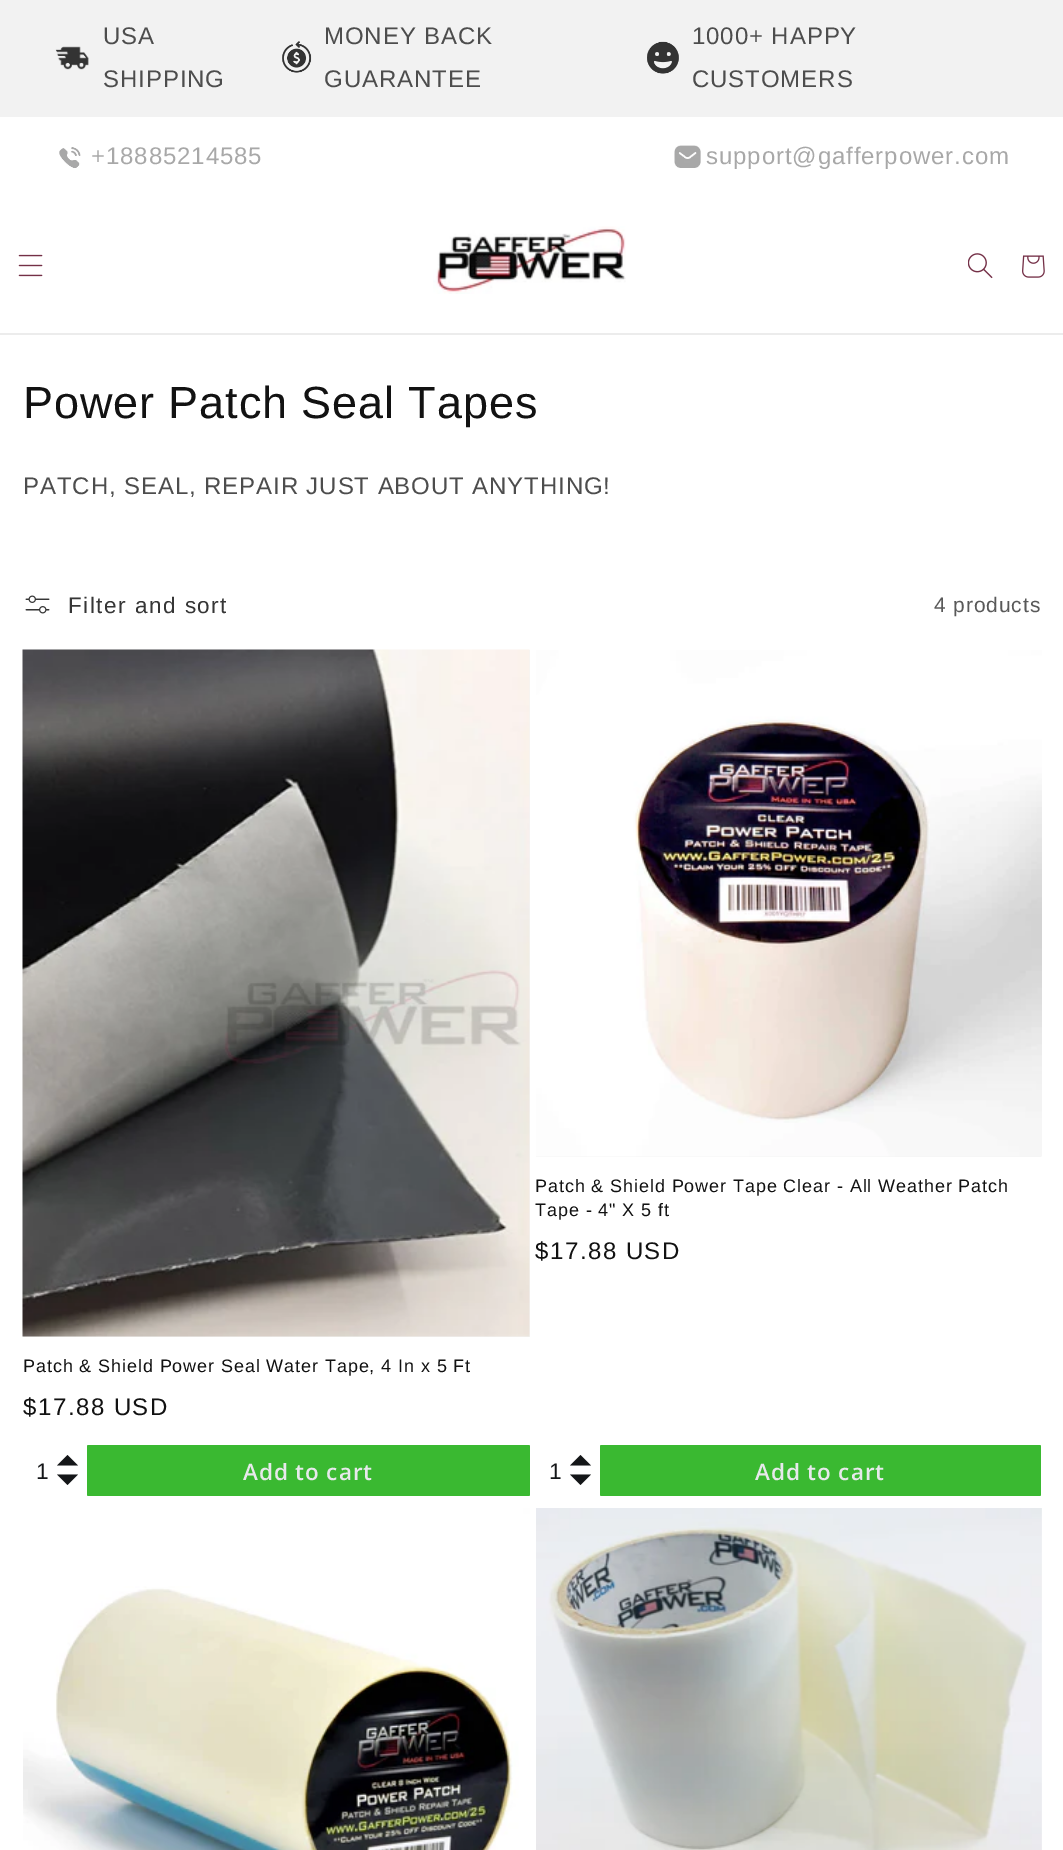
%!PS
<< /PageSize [1063 1850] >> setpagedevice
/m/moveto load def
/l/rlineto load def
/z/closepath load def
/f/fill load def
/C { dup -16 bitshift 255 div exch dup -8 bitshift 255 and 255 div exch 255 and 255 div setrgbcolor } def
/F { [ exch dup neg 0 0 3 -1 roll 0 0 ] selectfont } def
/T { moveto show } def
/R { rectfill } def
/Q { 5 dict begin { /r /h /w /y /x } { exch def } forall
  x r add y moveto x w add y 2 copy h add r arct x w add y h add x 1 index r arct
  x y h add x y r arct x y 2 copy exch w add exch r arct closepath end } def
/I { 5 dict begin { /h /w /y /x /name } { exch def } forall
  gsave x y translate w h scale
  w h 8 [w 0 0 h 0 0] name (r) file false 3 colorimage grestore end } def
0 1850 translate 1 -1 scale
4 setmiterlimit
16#FFFFFF C
0 0 1063 1850 R
16#F2F2F2 C
0 0 1063 117 R
/LiberationSans-Regular 24 F
16#4D4D4D C
103 44 m .9 0 (USA) ashow
(1.rgb) 55 46 34 24 I
103 87 m .9 0 (SHIPPING) ashow
324 44 m .9 0 (MONEY BACK) ashow
(2.rgb) 282 41 30 32 I
324 87 m .9 0 (GUARANTEE) ashow
692 44 m .9 0 (1000+ HAPPY) ashow
(3.rgb) 647 41 32 33 I
692 87 m .9 0 (CUSTOMERS) ashow
(4.rgb) 59 147 22 21 I
16#A8A8A8 C
91 164 m .9 0 (+18885214585) ashow
(5.rgb) 674 145 27 23 I
706 164 m .9 0 (support@gafferpower.com) ashow
16#ECECEC C
0 333 1063 2 R
(6.rgb) 18 254 25 23 I
(7.rgb) 433 226 193 68 I
(8.rgb) 968 253 25 26 I
(9.rgb) 1022 255 23 23 I
/LiberationSans-Regular 45 F
16#121212 C
23 418 m .9 0 (Power Patch Seal Tapes) ashow
/LiberationSans-Regular 24 F
16#4D4D4D C
23 494 m .9 0 (PATCH, SEAL, REPAIR JUST ABOUT ANYTHING!) ashow
(10.rgb) 25 595 25 19 I
/LiberationSans-Regular 22.5 F
16#363636 C
68 613 m 1.5 0 (Filter and sort) ashow
/LiberationSans-Regular 21 F
16#595959 C
934 612 m .9 0 (4 products) ashow
16#F4F4F4 C
23 650 507 687 R
(11.rgb) 22 649 508 688 I
/LiberationSans-Regular 18 F
16#121212 C
23 1372 m .9 0 (Patch & Shield Power Seal Water Tape, 4 In x 5 Ft) ashow
/LiberationSans-Regular 24 F
23 1415 m 1.5 0 ($17.88 USD) ashow
/LiberationSans-Regular 22.5 F
16#141618 C
(1) 36 1479 T
78 1465.5 m -21 0 l 10.5 -10.5 l z 57 1474.5 m 21 0 l -10.5 10.5 l z f
16#3AB931 C
87 1445 443 51 1.5 Q f
/OpenSans-SemiBold 22.5 F
16#E7E9EB C
243 1480 m .9 0 (Add to cart) ashow
16#F4F4F4 C
536 1156 505 1 R
(12.rgb) 536 650 506 507 I
/LiberationSans-Regular 18 F
16#121212 C
535 1192 m .9 0 (Patch & Shield Power Tape Clear - All Weather Patch) ashow
535 1216 m .9 0 (Tape - 4" X 5 ft) ashow
/LiberationSans-Regular 24 F
535 1259 m 1.5 0 ($17.88 USD) ashow
/LiberationSans-Regular 22.5 F
16#141618 C
(1) 549 1479 T
591 1465.5 m -21 0 l 10.5 -10.5 l z 570 1474.5 m 21 0 l -10.5 10.5 l z f
16#3AB931 C
600 1445 441 51 1.5 Q f
/OpenSans-SemiBold 22.5 F
16#E7E9EB C
755 1480 m .9 0 (Add to cart) ashow
(13.rgb) 23 1508 507 342 I
(14.rgb) 536 1508 506 342 I
showpage
